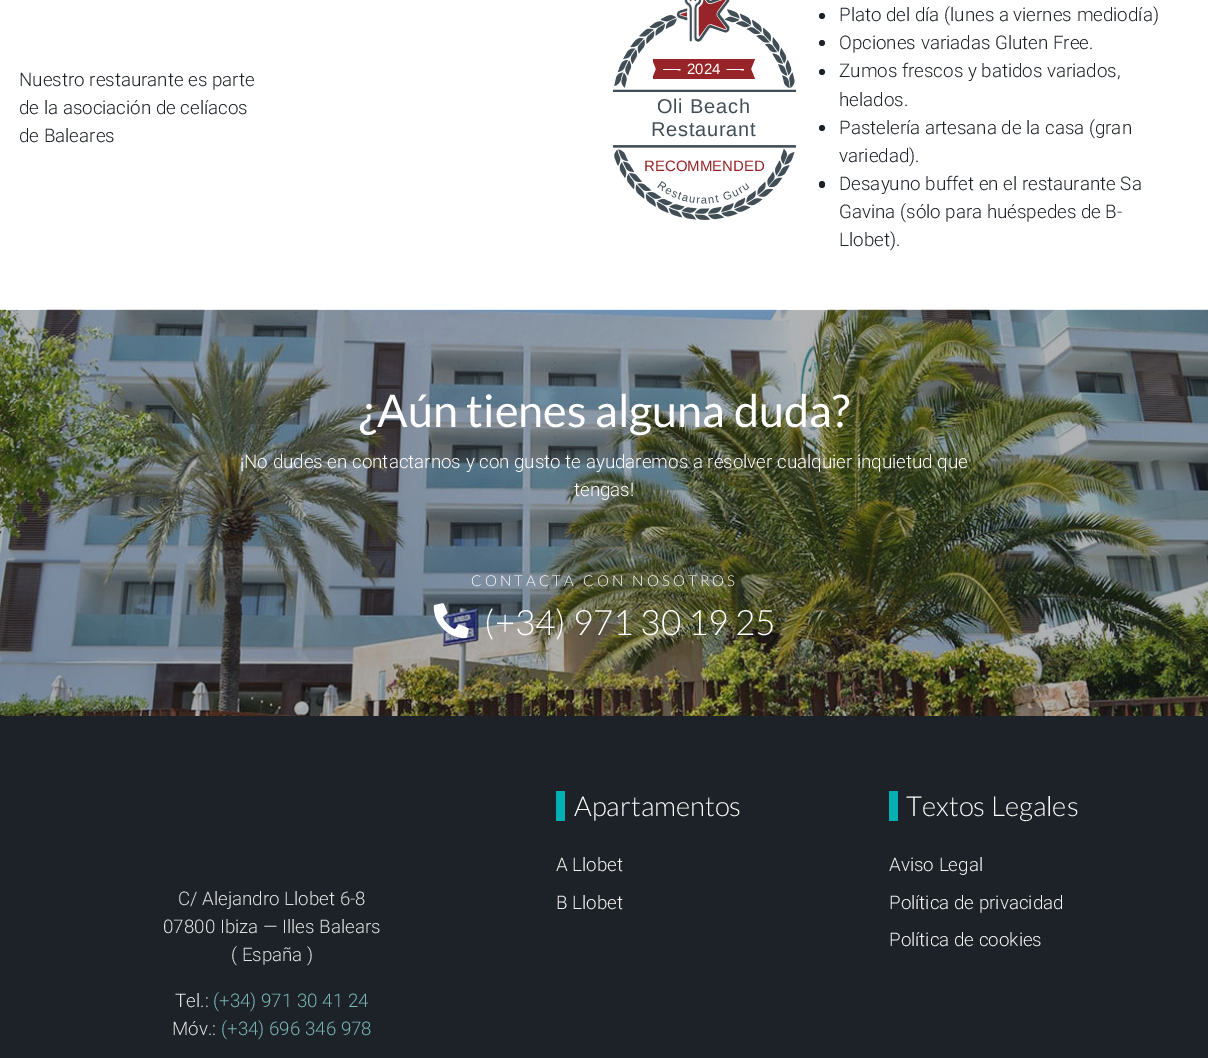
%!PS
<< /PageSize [1208 1058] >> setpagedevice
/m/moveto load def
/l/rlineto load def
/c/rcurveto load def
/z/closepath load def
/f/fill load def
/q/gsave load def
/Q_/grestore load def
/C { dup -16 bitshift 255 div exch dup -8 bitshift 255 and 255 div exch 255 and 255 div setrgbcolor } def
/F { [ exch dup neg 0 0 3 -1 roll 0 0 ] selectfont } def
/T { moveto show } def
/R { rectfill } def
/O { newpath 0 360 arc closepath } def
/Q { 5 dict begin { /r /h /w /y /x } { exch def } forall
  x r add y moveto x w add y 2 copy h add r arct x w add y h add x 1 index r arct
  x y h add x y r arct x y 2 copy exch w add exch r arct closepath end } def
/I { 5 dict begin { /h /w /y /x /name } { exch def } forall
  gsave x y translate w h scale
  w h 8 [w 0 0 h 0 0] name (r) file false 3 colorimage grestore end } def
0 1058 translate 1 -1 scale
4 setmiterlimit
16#FFFFFF C
0 0 1208 1058 R
/Roboto-Light 18.75 F
16#1D2228 C
(Nuestro restaurante es parte) 19 86 T
(de la asociación de celíacos) 19 114 T
(de Baleares) 19 142 T
(1.rgb) 613 0 183 92 I
q
653 59 102 20 rectclip
16#972428 C
755 59 m -103 0 l 4 10 l -4 10 l 103 0 l -4 -10 l z f
Q_
16#FFFFFF C
663.5 69 m 16.5 0 l .5 .5 l .5 1.5 -3 .5 -3 .5 c -14 0 l -.5 0 -.5 -1 0 -1 c z f
727 69 m 16.5 0 l .5 .5 l 0 1.5 -3 .5 -3.5 .5 c -13.5 0 l -.5 0 -.5 -1 0 -1 c z f
/LiberationSans-Regular 15 F
(2024) 687 74 T
/LiberationSans-Regular 20 F
16#424E56 C
657 113 m .75 0 (Oli Beach) ashow
651 136 m .75 0 (Restaurant) ashow
(2.rgb) 613 145 183 75 I
/LiberationSans-Regular 15 F
16#972428 C
(RECOMMENDED) 644 171 T
(3.rgb) 657 181 93 23 I
16#1D2228 C
822 16 3 O f
/Roboto-Light 18.75 F
(Plato del día \(lunes a viernes mediodía\)) 839 21 T
822 43 3 O f
(Opciones variadas Gluten Free.) 839 49 T
822 72 3 O f
(Zumos frescos y batidos variados,) 839 77 T
(helados.) 839 106 T
822 128 3 O f
(Pastelería artesana de la casa \(gran) 839 134 T
(variedad\).) 839 162 T
819 181 6 7 3 Q f
(Desayuno buffet en el restaurante Sa) 839 190 T
(Gavina \(sólo para huéspedes de B-) 839 218 T
(Llobet\).) 839 246 T
(4.rgb) 0 309 1208 407 I
/Lato-Regular 45 F
16#FFFFFF C
(¿Aún tienes alguna duda?) 359 427 T
/Roboto-Light 18.75 F
(¡No dudes en contactarnos y con gusto te ayudaremos a resolver cualquier inquietud que) 240 468 T
(tengas!) 574 496 T
/Lato-Light 15 F
471 586 m 3.1 0 (CONTACTA CON NOSOTROS) ashow
(5.rgb) 433 603 36 36 I
/Lato-Light 35 F
(\(+34\) 971 30 19 25) 484 635 T
16#1D2228 C
0 716 1208 342 R
16#00B0B2 C
556 791 9 30 R
/Lato-Light 27.5 F
16#FFFFFF C
(Apartamentos) 574 816 T
/Roboto-Light 18.75 F
16#F5F5F5 C
(A Llobet) 556 871 T
(B Llobet) 556 909 T
16#00B0B2 C
889 791 9 30 R
/Lato-Light 27.5 F
16#FFFFFF C
(Textos Legales) 906 816 T
/Roboto-Light 18.75 F
16#F5F5F5 C
(Aviso Legal) 889 871 T
(Política de privacidad) 889 909 T
(Política de cookies) 889 946 T
16#E1E2E2 C
(C/ Alejandro Llobet 6-8) 178 905 T
(07800 Ibiza — Illes Balears) 163 933 T
(\( España \)) 231 961 T
(Tel.:) 175 1007 T
16#79B5B5 C
(\(+34\) 971 30 41 24) 213 1007 T
16#E1E2E2 C
(Móv.:) 172 1035 T
16#79B5B5 C
(\(+34\) 696 346 978) 221 1035 T
showpage
